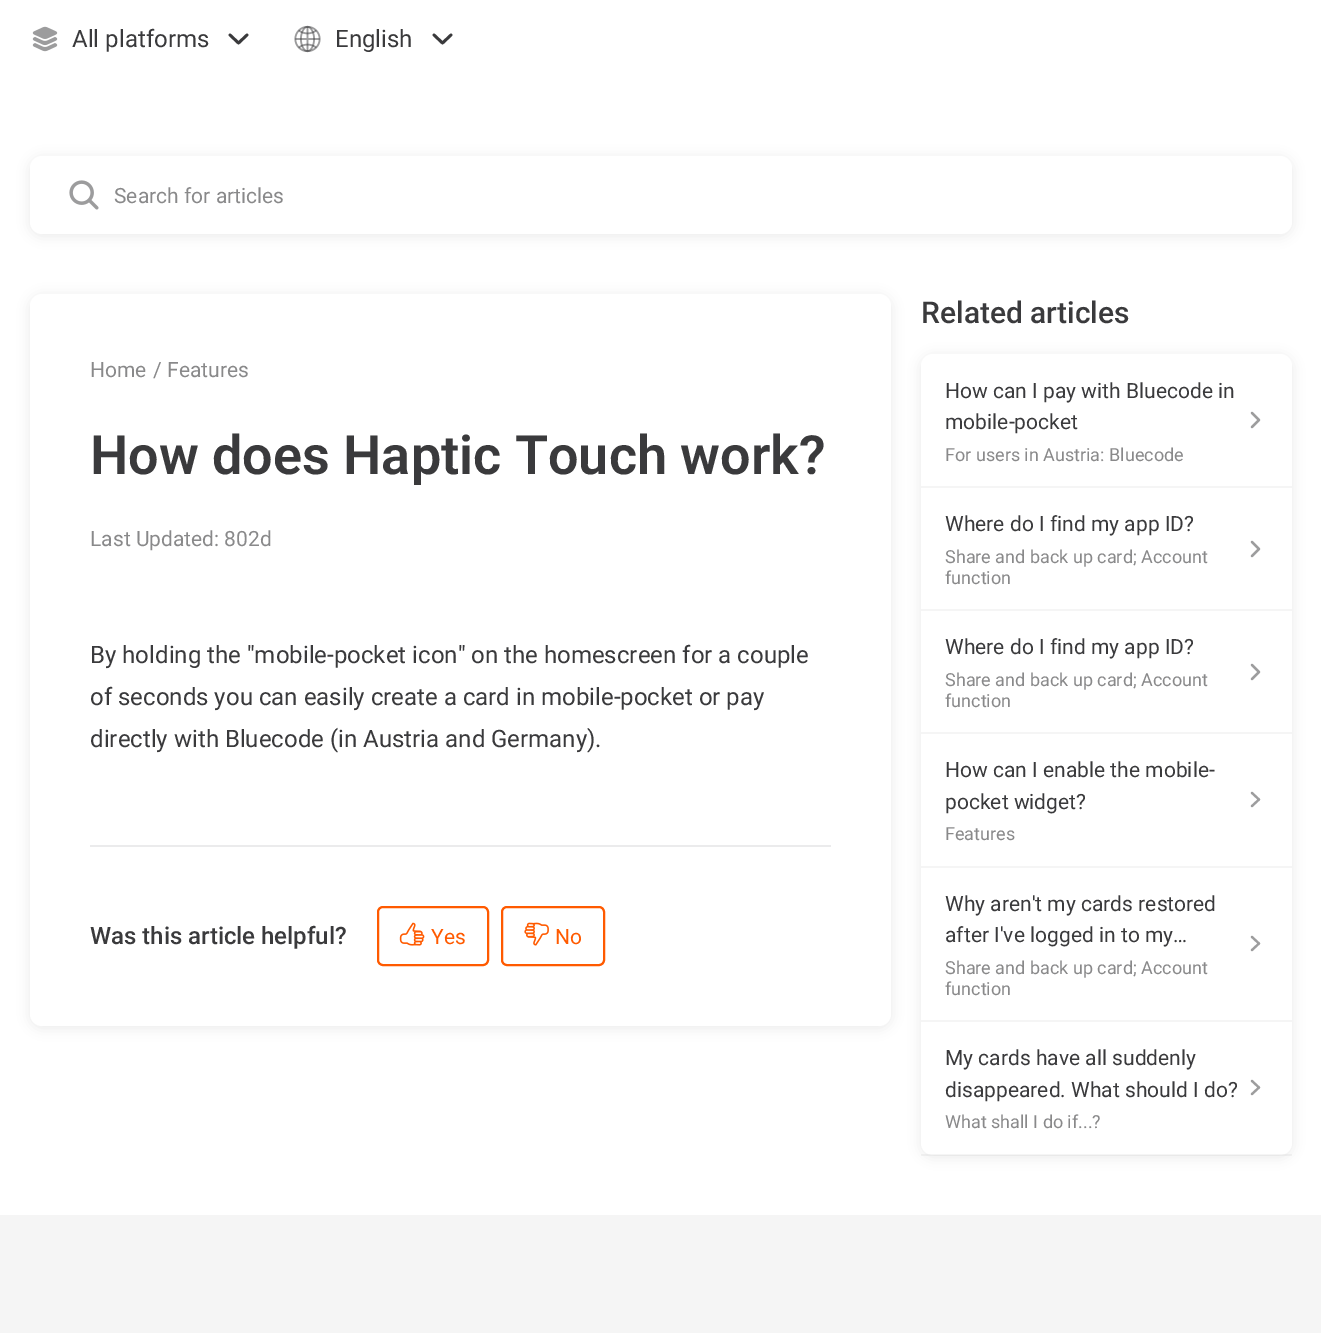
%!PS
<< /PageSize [1321 1333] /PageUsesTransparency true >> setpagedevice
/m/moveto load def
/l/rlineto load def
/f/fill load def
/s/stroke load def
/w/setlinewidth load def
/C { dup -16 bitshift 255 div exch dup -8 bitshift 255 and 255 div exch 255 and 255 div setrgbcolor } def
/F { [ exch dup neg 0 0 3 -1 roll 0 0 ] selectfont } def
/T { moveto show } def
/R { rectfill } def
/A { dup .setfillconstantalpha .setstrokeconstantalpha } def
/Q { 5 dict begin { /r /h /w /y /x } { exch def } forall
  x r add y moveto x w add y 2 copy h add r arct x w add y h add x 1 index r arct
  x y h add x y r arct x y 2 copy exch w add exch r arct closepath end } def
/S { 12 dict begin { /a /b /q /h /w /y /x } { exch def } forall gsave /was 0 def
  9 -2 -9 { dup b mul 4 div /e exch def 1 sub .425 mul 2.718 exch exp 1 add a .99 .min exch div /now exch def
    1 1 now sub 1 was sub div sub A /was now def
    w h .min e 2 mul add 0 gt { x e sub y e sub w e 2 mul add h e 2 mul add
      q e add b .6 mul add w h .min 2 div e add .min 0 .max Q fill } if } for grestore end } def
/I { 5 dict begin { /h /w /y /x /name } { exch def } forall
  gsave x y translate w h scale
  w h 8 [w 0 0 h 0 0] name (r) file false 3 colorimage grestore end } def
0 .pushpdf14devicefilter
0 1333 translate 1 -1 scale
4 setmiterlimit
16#FFFFFF C
0 0 1321 1333 R
(1.rgb) 32 26 26 26 I
/Roboto-Regular 24 F
16#3A3A3C C
(All platforms) 72 47 T
2.8 w
1 setlinecap
1 setlinejoin
230 35 m 8.5 8 l 8.5 -8 l s
(2.rgb) 294 25 27 28 I
(English) 335 47 T
434 35 m 8.5 8 l 8.5 -8 l s
16#000000 C
30 158 1262 78 12 6 .08 S
16#FFFFFF C
30 156 1262 78 12 Q f
(3.rgb) 69 180 30 30 I
/Roboto-Regular 21 F
16#89898A C
(Search for articles) 114 203 T
16#000000 C
30 296 861 732 12 6 .08 S
16#FFFFFF C
30 294 861 732 12 Q f
16#89898A C
(Home) 90 377 T
(/) 153 377 T
(Features) 167 377 T
/Roboto-SemiBold 54 F
16#3A3A3C C
(How does Haptic Touch work?) 90 474 T
/Roboto-Regular 21 F
16#89898A C
(Last Updated: 802d) 90 546 T
16#EBEBEC C
90 845 741 2 R
/Roboto-Regular 24 F
16#3A3A3C C
(By holding the "mobile-pocket icon" on the homescreen for a couple) 90 663 T
(of seconds you can easily create a card in mobile-pocket or pay) 90 705 T
(directly with Bluecode \(in Austria and Germany\).) 90 747 T
/Roboto-Medium 24 F
(Was this article helpful?) 90 944 T
16#FF5A00 C
2 w
0 setlinecap
0 setlinejoin
378 907 110 58 5 Q s
(4.rgb) 399 922 26 24 I
/Roboto-Regular 21 F
(Yes) 431 944 T
502 907 102 58 5 Q s
(5.rgb) 524 922 25 24 I
(No) 555 944 T
/Roboto-Medium 30 F
16#3A3A3C C
(Related articles) 921 323 T
16#000000 C
921 356 371 801 12 6 .08 S
16#FFFFFF C
921 354 371 801 12 Q f
16#F5F5F5 C
921 486 371 2 R
/Roboto-Regular 21 F
16#3A3A3C C
(How can I pay with Bluecode in) 945 398 T
(mobile-pocket) 945 429 T
/Roboto-Regular 18 F
16#89898A C
(For users in Austria: Bluecode) 945 461 T
16#9D9D9E C
2.2 w
1 setlinecap
1 setlinejoin
1252 413 m 7 7 l -7 7 l s
16#F5F5F5 C
921 609 371 2 R
/Roboto-Regular 21 F
16#3A3A3C C
(Where do I find my app ID?) 945 531 T
/Roboto-Regular 18 F
16#89898A C
(Share and back up card; Account) 945 563 T
(function) 945 584 T
16#9D9D9E C
1252 542 m 7 7 l -7 7 l s
16#F5F5F5 C
921 732 371 2 R
/Roboto-Regular 21 F
16#3A3A3C C
(Where do I find my app ID?) 945 654 T
/Roboto-Regular 18 F
16#89898A C
(Share and back up card; Account) 945 686 T
(function) 945 707 T
16#9D9D9E C
1252 665 m 7 7 l -7 7 l s
16#F5F5F5 C
921 866 371 2 R
/Roboto-Regular 21 F
16#3A3A3C C
(How can I enable the mobile-) 945 777 T
(pocket widget?) 945 809 T
/Roboto-Regular 18 F
16#89898A C
(Features) 945 840 T
16#9D9D9E C
1252 793 m 7 6.5 l -7 6.5 l s
16#F5F5F5 C
921 1020 371 2 R
/Roboto-Regular 21 F
16#3A3A3C C
(Why aren't my cards restored) 945 911 T
(after I've logged in to my…) 945 942 T
/Roboto-Regular 18 F
16#89898A C
(Share and back up card; Account) 945 974 T
(function) 945 995 T
16#9D9D9E C
1252 937 m 7 6.5 l -7 6.5 l s
0.05 A
16#3A3A3C C
921 1154 371 2 R
/Roboto-Regular 21 F
1 A
(My cards have all suddenly) 945 1065 T
(disappeared. What should I do?) 945 1097 T
/Roboto-Regular 18 F
16#89898A C
(What shall I do if...?) 945 1128 T
16#9D9D9E C
1252 1081 m 7 6.5 l -7 6.5 l s
16#F5F5F5 C
0 1215 1321 118 R
.poppdf14devicefilter showpage
